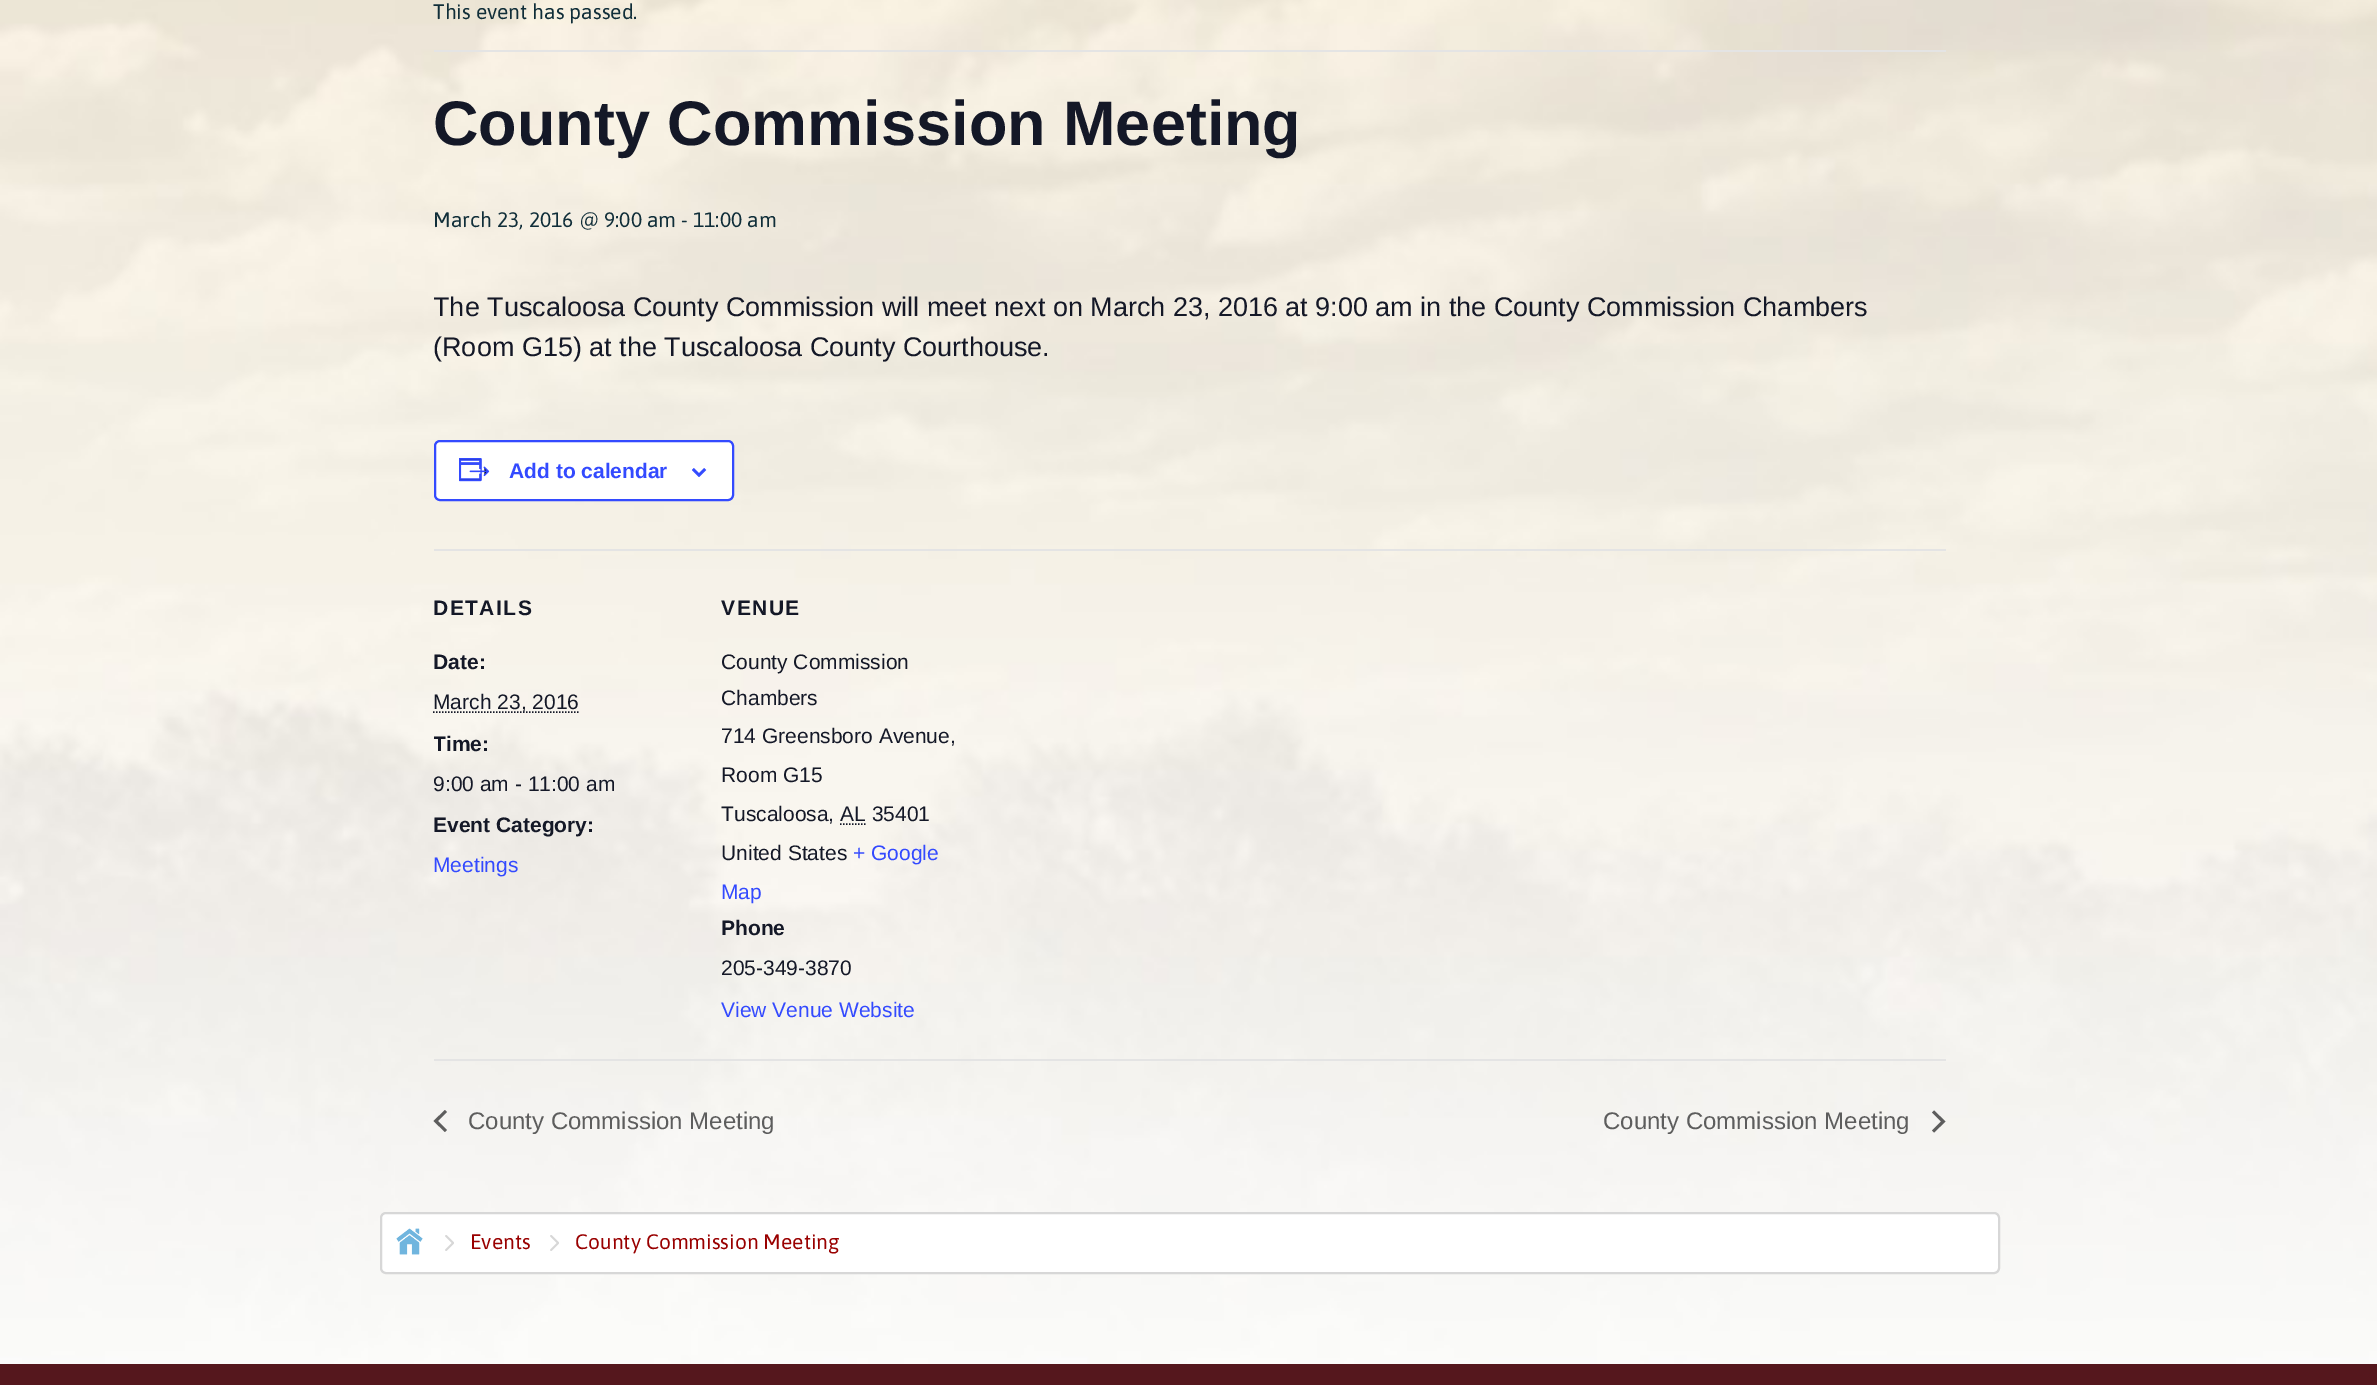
%!PS
<< /PageSize [2377 1385] >> setpagedevice
/m/moveto load def
/l/rlineto load def
/z/closepath load def
/f/fill load def
/s/stroke load def
/q/gsave load def
/Q_/grestore load def
/w/setlinewidth load def
/C { dup -16 bitshift 255 div exch dup -8 bitshift 255 and 255 div exch 255 and 255 div setrgbcolor } def
/F { [ exch dup neg 0 0 3 -1 roll 0 0 ] selectfont } def
/T { moveto show } def
/R { rectfill } def
/Q { 5 dict begin { /r /h /w /y /x } { exch def } forall
  x r add y moveto x w add y 2 copy h add r arct x w add y h add x 1 index r arct
  x y h add x y r arct x y 2 copy exch w add exch r arct closepath end } def
/I { 5 dict begin { /h /w /y /x /name } { exch def } forall
  gsave x y translate w h scale
  w h 8 [w 0 0 h 0 0] name (r) file false 3 colorimage grestore end } def
0 1385 translate 1 -1 scale
4 setmiterlimit
16#FFFFFF C
0 0 2377 1385 R
(1.rgb) 0 0 2377 1364 I
16#E4E4E4 C
434 50 1512 2 R
/Asap-Regular 21 F
16#102E39 C
(This event has passed.) 433 19 T
/LiberationSans-Bold 63 F
16#141827 C
(County Commission Meeting) 433 145 T
/Asap-Regular 21 F
16#102E39 C
(March 23, 2016 @ 9:00 am - 11:00 am) 433 227 T
q
434 287 1512 772 rectclip
/LiberationSans-Regular 27 F
16#141827 C
(The Tuscaloosa County Commission will meet next on March 23, 2016 at 9:00 am in the County Commission Chambers) 433 316 T
Q_
/LiberationSans-Regular 27 F
16#141827 C
(\(Room G15\) at the Tuscaloosa County Courthouse.) 433 356 T
16#FFFFFF C
435 441 298 59 5 Q q f Q_
16#334AFF C
2 w
s
(2.rgb) 459 458 31 24 I
/LiberationSans-Bold 21 F
(Add to calendar) 509 478 T
(3.rgb) 692 468 15 9 I
16#E4E4E4 C
434 549 1512 2 R
16#141827 C
433 615 m 1.5 0 (DETAILS) ashow
(Date:) 433 669 T
1.5 w
[1.5 1.5] 0 setdash
433 712 m 145.5 0 l s
/LiberationSans-Regular 21 F
(March 23, 2016) 433 709 T
q
434 287 1512 772 rectclip
/LiberationSans-Bold 21 F
(Time:) 433 751 T
/LiberationSans-Regular 21 F
(9:00 am - 11:00 am) 433 791 T
Q_
/LiberationSans-Bold 21 F
(Event Category:) 433 832 T
/LiberationSans-Regular 21 F
16#334AFF C
(Meetings) 433 872 T
/LiberationSans-Bold 21 F
16#141827 C
721 615 m 1.5 0 (VENUE) ashow
/LiberationSans-Regular 21 F
(County Commission) 721 669 T
(Chambers) 721 705 T
(714 Greensboro Avenue,) 721 743 T
(Room G15) 721 782 T
(Tuscaloosa, AL 35401) 721 821 T
840 824 m 25.5 0 l s
(United States) 721 860 T
16#334AFF C
(+ Google) 853 860 T
(Map) 721 899 T
/LiberationSans-Bold 21 F
16#141827 C
(Phone) 721 935 T
/LiberationSans-Regular 21 F
(205-349-3870) 721 975 T
16#334AFF C
(View Venue Website) 721 1017 T
16#E4E4E4 C
434 1059 1512 2 R
16#5D5D5D C
447 1130 m -2 2 l -11.5 -11 l 11.5 -11 l 2 2 l -9 9 l z f
/LiberationSans-Regular 24 F
(County Commission Meeting) 468 1129 T
(County Commission Meeting) 1603 1129 T
1932 1112.5 m 2 -2 l 11.5 11 l -11.5 11 l -2 -2 l 9 -9 l z f
16#FFFFFF C
381 1213 1618 60 5 Q q f Q_
16#D7D7D7 C
2 w
[] 0 setdash
s
(4.rgb) 396 1228 27 27 I
(5.rgb) 445 1235 9 16 I
/Asap-Regular 21 F
16#990000 C
(Events) 470 1249 T
(5.rgb) 550 1235 9 16 I
(County Commission Meeting) 575 1249 T
16#55171D C
0 1364 2377 21 R
showpage
